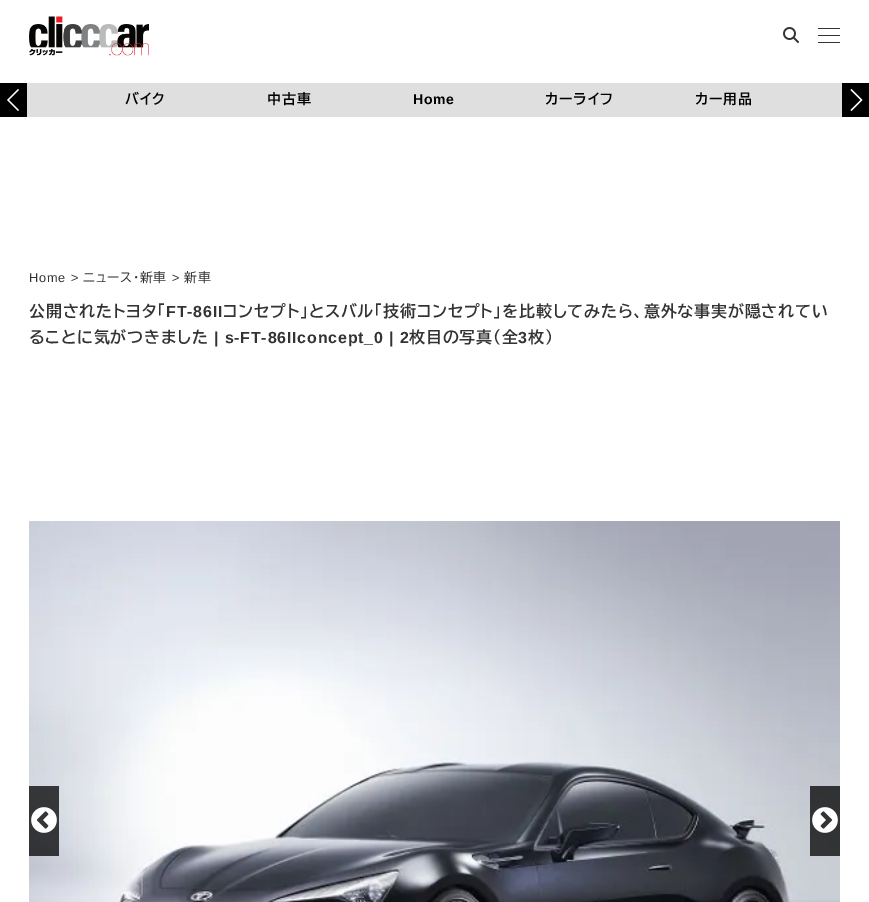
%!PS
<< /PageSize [869 902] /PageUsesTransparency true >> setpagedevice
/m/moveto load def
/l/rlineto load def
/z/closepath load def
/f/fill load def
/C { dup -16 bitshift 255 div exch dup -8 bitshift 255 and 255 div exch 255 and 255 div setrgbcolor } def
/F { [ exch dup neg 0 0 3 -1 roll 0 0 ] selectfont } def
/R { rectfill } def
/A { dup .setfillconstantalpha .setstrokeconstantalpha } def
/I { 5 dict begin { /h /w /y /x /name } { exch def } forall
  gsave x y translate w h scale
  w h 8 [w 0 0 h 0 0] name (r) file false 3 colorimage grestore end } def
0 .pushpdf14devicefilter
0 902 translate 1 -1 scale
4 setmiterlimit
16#FFFFFF C
0 0 869 902 R
(1.rgb) 29 16 120 40 I
(2.rgb) 783 27 16 16 I
16#333333 C
818 28 22 1 R
818 35 22 1 R
818 42 22 1 R
16#000000 C
0 83 27 34 R
16#FFFFFF C
7 100 m 11 -11 l 1 1 l -10 10 l 10 10 l -1 1 l z f
16#DFDFDF C
27 83 335 34 R
/BIZUDPGothic-Bold 14 F
16#000000 C
125 104 m .8 0 (バイク) ashow
267 104 m .8 0 (中古車) ashow
16#DFDFDF C
362 83 480 34 R
/LiberationSans-Bold 14 F
16#000000 C
413 104 m .8 0 (Home) ashow
/BIZUDPGothic-Bold 14 F
545 104 m .8 0 (カーライフ) ashow
695 104 m .8 0 (カー用品) ashow
842 83 27 34 R
16#FFFFFF C
862.5 100 m -11 11 l -1 -1 l 10 -10 l -10 -10 l 1 -1 l z f
/LiberationSans-Regular 12.75 F
16#333333 C
29 282 m .8 0 (Home >) ashow
/BIZUDPGothic-Regular 12.75 F
83 282 m .8 0 (ニュース・新車) ashow
/LiberationSans-Regular 12.75 F
172 282 m .8 0 (>) ashow
/BIZUDPGothic-Regular 12.75 F
184 282 m .8 0 (新車) ashow
/BIZUDPGothic-Bold 16 F
29 317 m .8 0 (公開されたトヨタ「) ashow
/LiberationSans-Bold 16 F
166 317 m .8 0 (FT-86II) ashow
/BIZUDPGothic-Bold 16 F
223 317 m .8 0 (コンセプト」とスバル「技術コンセプト」を比較してみたら、意外な事実が隠されてい) ashow
29 343 m .8 0 (ることに気がつきました) ashow
/LiberationSans-Bold 16 F
214 343 m .8 0 (| s-FT-86IIconcept_0 | 2) ashow
/BIZUDPGothic-Bold 16 F
409 343 m .8 0 (枚目の写真（全) ashow
/LiberationSans-Bold 16 F
518 343 m .8 0 (3) ashow
/BIZUDPGothic-Bold 16 F
528 343 m .8 0 (枚）) ashow
(3.rgb) 29 521 811 381 I
0.75 A
16#000000 C
29 786 30 70 R
1 A
(4.rgb) 31 807 26 26 I
0.75 A
810 786 30 70 R
1 A
(5.rgb) 812 807 26 26 I
.poppdf14devicefilter showpage
